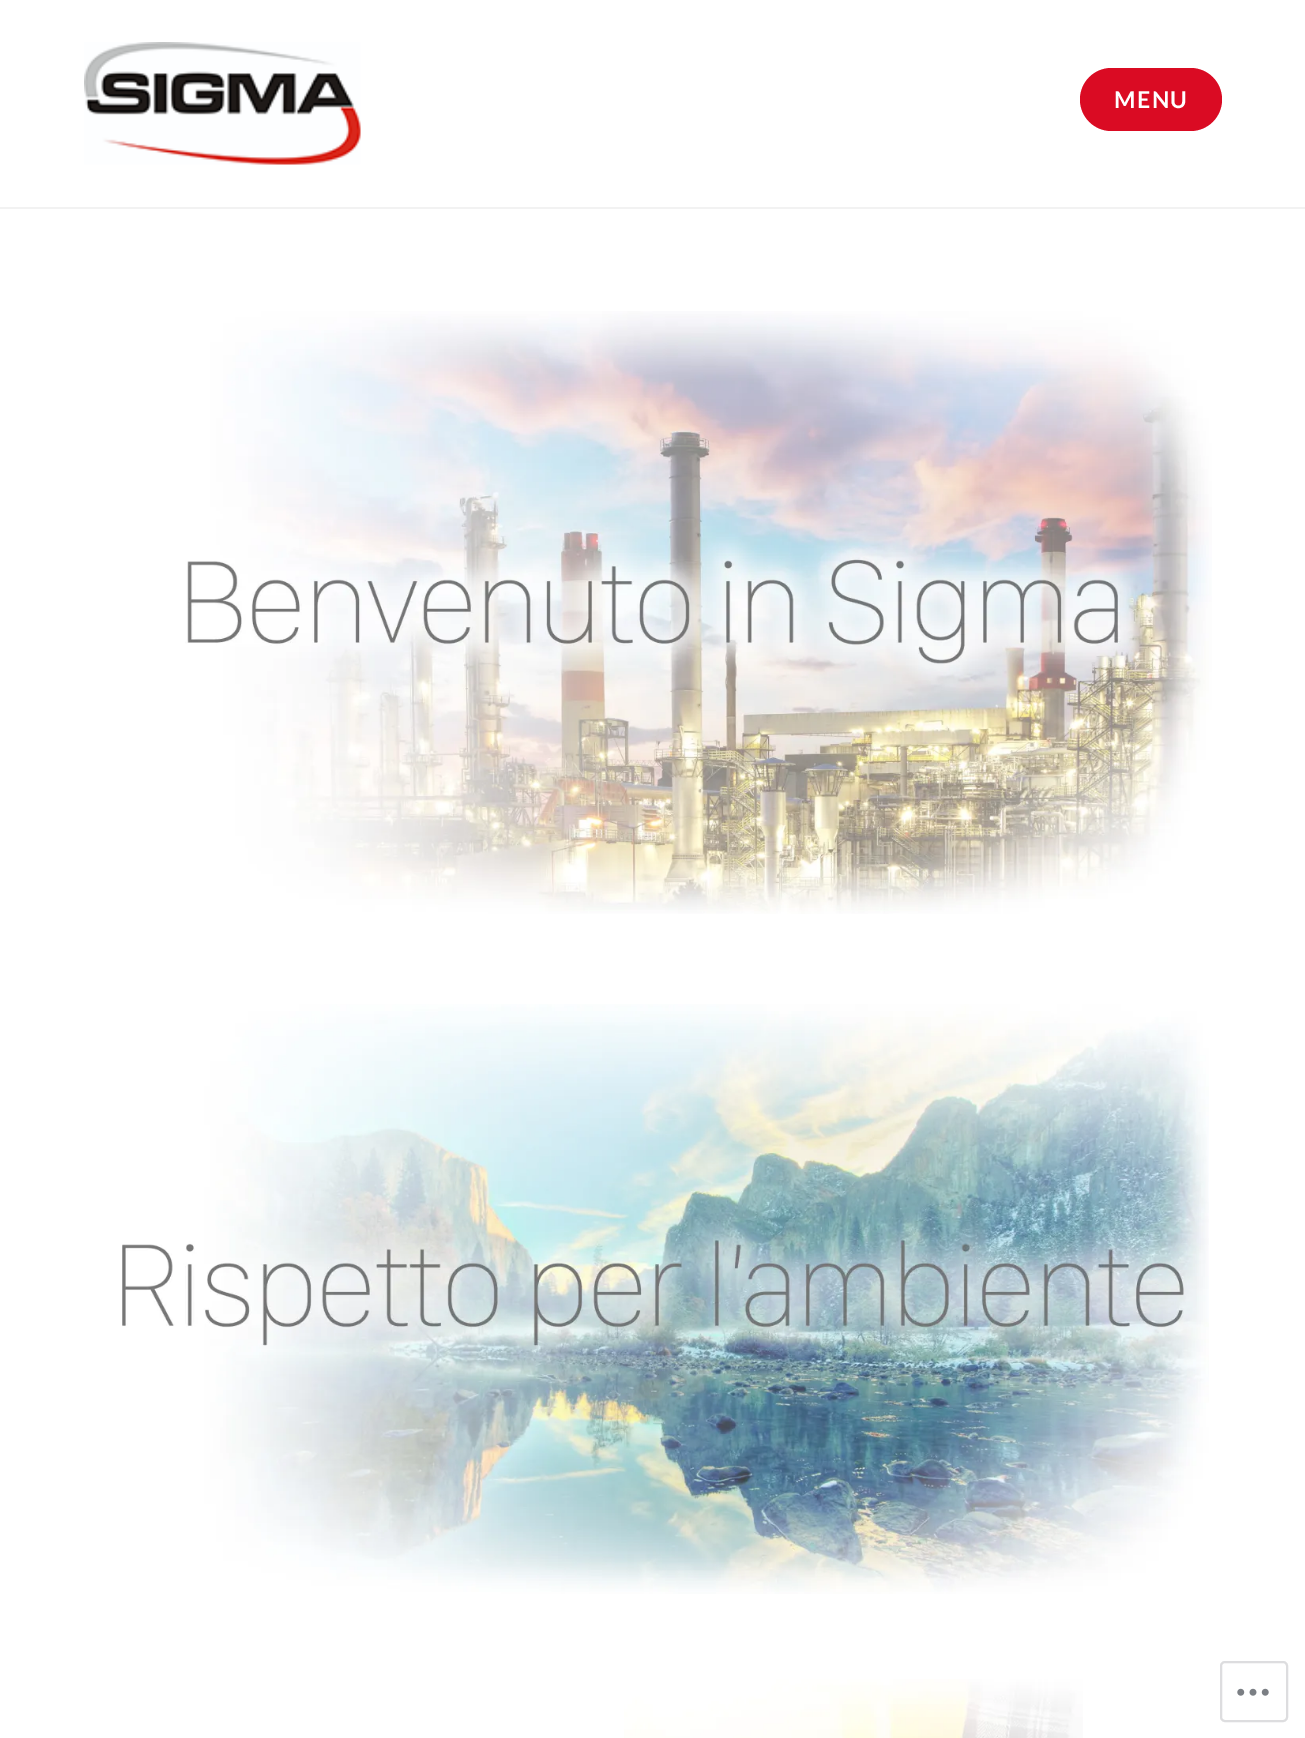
%!PS
<< /PageSize [1305 1738] >> setpagedevice
/m/moveto load def
/f/fill load def
/s/stroke load def
/w/setlinewidth load def
/C { dup -16 bitshift 255 div exch dup -8 bitshift 255 and 255 div exch 255 and 255 div setrgbcolor } def
/F { [ exch dup neg 0 0 3 -1 roll 0 0 ] selectfont } def
/R { rectfill } def
/Q { 5 dict begin { /r /h /w /y /x } { exch def } forall
  x r add y moveto x w add y 2 copy h add r arct x w add y h add x 1 index r arct
  x y h add x y r arct x y 2 copy exch w add exch r arct closepath end } def
/I { 5 dict begin { /h /w /y /x /name } { exch def } forall
  gsave x y translate w h scale
  w h 8 [w 0 0 h 0 0] name (r) file false 3 colorimage grestore end } def
0 1738 translate 1 -1 scale
4 setmiterlimit
16#FFFFFF C
0 0 1305 1738 R
16#F2F2F2 C
0 207 1305 2 R
(1.rgb) 84 42 277 123 I
16#DA0B23 C
1080 68 142 63 31.5 Q f
/Lato-Bold 23 F
16#FFFFFF C
1114 108 m 1.5 0 (MENU) ashow
(2.rgb) 185 311 1027 603 I
(3.rgb) 122 1004 1087 590 I
(4.rgb) 624 1679 459 59 I
16#DDDDDF C
2 w
1221 1662 66 59 4 Q s
(5.rgb) 1237 1688 32 8 I
showpage
